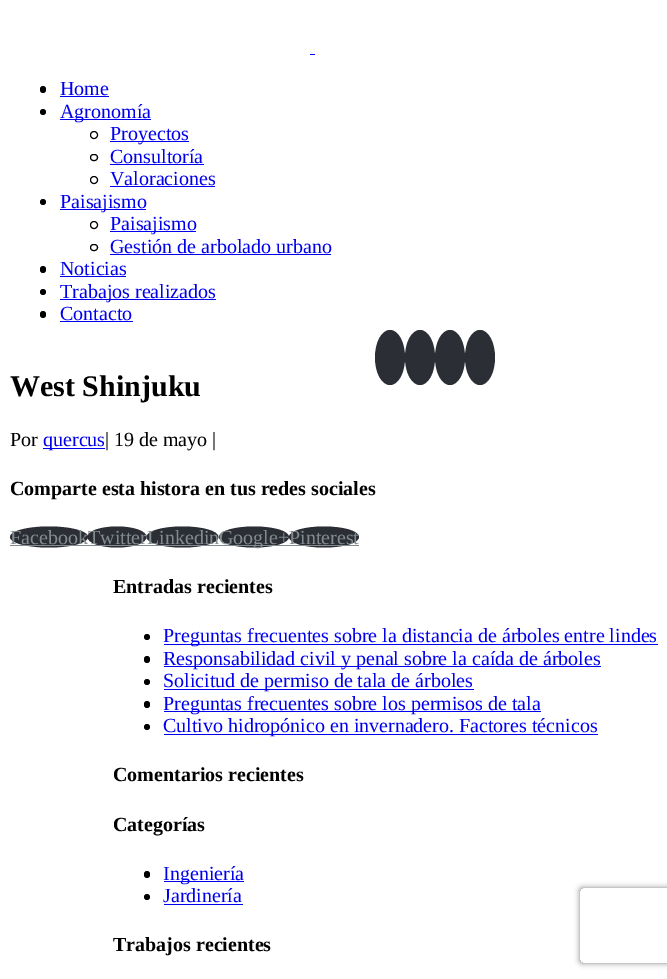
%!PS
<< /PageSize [667 979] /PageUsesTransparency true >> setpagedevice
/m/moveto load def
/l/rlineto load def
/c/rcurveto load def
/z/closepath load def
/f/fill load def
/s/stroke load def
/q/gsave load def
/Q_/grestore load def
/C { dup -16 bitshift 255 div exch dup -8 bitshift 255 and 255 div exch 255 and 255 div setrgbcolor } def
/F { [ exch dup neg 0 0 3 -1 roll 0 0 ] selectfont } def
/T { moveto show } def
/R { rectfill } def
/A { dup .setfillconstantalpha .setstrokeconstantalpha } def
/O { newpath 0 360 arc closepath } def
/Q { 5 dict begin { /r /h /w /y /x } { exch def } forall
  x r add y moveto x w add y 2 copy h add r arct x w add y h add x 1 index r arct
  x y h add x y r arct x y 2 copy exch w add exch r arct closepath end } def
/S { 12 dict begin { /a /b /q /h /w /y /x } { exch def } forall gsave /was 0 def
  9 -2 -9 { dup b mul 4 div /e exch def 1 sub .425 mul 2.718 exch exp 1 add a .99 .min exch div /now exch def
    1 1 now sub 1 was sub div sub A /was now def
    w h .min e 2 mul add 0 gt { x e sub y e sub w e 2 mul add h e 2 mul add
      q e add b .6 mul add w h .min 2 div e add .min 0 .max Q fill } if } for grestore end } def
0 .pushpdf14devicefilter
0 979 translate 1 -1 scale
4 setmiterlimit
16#FFFFFF C
0 0 667 979 R
16#0000EE C
310 54 5 1 R
16#000000 C
40 86 6 7 3 Q f
/LiberationSerif-Regular 20 F
16#0000EE C
(Home) 60 95 T
60 96 49 1 R
16#000000 C
43 112 3 O f
16#0000EE C
60 119 91 1 R
(Agronomía) 60 118 T
16#000000 C
94 135 3.5 O s
16#0000EE C
110 141 79 1 R
(Proyectos) 110 140 T
16#000000 C
90.5 154.5 7 6 3 Q s
16#0000EE C
(Consultoría) 110 163 T
110 164 94 1 R
16#000000 C
94 180 3.5 O s
16#0000EE C
(Valoraciones) 110 185 T
110 186 105 1 R
16#000000 C
43 202 3 O f
16#0000EE C
60 209 86 1 R
(Paisajismo) 60 208 T
16#000000 C
94 225 3.5 O s
16#0000EE C
110 231 86 1 R
(Paisajismo) 110 230 T
16#000000 C
90.5 244.5 7 6 3 Q s
16#0000EE C
(Gestión de arbolado urbano) 110 253 T
110 254 221 1 R
16#000000 C
40 266 6 7 3 Q f
16#0000EE C
(Noticias) 60 275 T
60 276 66 1 R
16#000000 C
43 292 3 O f
16#0000EE C
60 299 156 1 R
(Trabajos realizados) 60 298 T
16#000000 C
40 311 6 7 3 Q f
16#0000EE C
(Contacto) 60 320 T
60 321 73 1 R
16#2B2E35 C
390 330 m 8.5 0 15 12.5 15 27.5 c 0 15 -6.5 27.5 -15 27.5 c -8.5 0 -15 -12.5 -15 -27.5 c 0 -15 6.5 -27.5 15 -27.5 c z f
420 330 m 8.5 0 15 12.5 15 27.5 c 0 15 -6.5 27.5 -15 27.5 c -8.5 0 -15 -12.5 -15 -27.5 c 0 -15 6.5 -27.5 15 -27.5 c z f
450 330 m 8.5 0 15 12.5 15 27.5 c 0 15 -6.5 27.5 -15 27.5 c -8.5 0 -15 -12.5 -15 -27.5 c 0 -15 6.5 -27.5 15 -27.5 c z f
480 330 m 8.5 0 15 12.5 15 27.5 c 0 15 -6.5 27.5 -15 27.5 c -8.5 0 -15 -12.5 -15 -27.5 c 0 -15 6.5 -27.5 15 -27.5 c z f
/LiberationSerif-Bold 30 F
16#000000 C
(West Shinjuku) 10 396 T
/LiberationSerif-Regular 20 F
(Por) 10 446 T
16#0000EE C
43 448 62 1 R
(quercus) 43 446 T
16#000000 C
(| 19 de mayo |) 105 446 T
/LiberationSerif-Bold 20 F
(Comparte esta histora en tus redes sociales) 10 495 T
16#2B2E35 C
49 526.5 m 21.5 0 39 4.5 39 10.5 c 0 6 -17.5 10.5 -39 10.5 c -21.5 0 -39 -4.5 -39 -10.5 c 0 -6 17.5 -10.5 39 -10.5 c z f
/LiberationSerif-Regular 20 F
16#828C8E C
(Facebook) 10 544 T
10 545 78 1 R
16#2B2E35 C
117 526.5 m 16.5 0 29.5 4.5 29.5 10.5 c 0 6 -13 10.5 -29.5 10.5 c -16.5 0 -29.5 -4.5 -29.5 -10.5 c 0 -6 13 -10.5 29.5 -10.5 c z f
16#828C8E C
(Twitter) 88 544 T
88 545 58 1 R
16#2B2E35 C
182.5 526.5 m 20 0 36 4.5 36 10.5 c 0 6 -16 10.5 -36 10.5 c -20 0 -36 -4.5 -36 -10.5 c 0 -6 16 -10.5 36 -10.5 c z f
16#828C8E C
(Linkedin) 147 544 T
146 545 73 1 R
16#2B2E35 C
254 526.5 m 19.5 0 35 4.5 35 10.5 c 0 6 -15.5 10.5 -35 10.5 c -19.5 0 -35 -4.5 -35 -10.5 c 0 -6 15.5 -10.5 35 -10.5 c z f
16#828C8E C
219 545 70 1 R
(Google+) 219 544 T
16#2B2E35 C
324 526.5 m 19.5 0 35 4.5 35 10.5 c 0 6 -15.5 10.5 -35 10.5 c -19.5 0 -35 -4.5 -35 -10.5 c 0 -6 15.5 -10.5 35 -10.5 c z f
16#828C8E C
(Pinterest) 289 544 T
289 545 70 1 R
/LiberationSerif-Bold 20 F
16#000000 C
(Entradas recientes) 113 593 T
147 637 3 O f
16#0000EE C
164 644 494 1 R
/LiberationSerif-Regular 20 F
(Preguntas frecuentes sobre la distancia de árboles entre lindes) 163 642 T
16#000000 C
144 656 6 7 3 Q f
16#0000EE C
164 666 437 1 R
(Responsabilidad civil y penal sobre la caída de árboles) 163 665 T
16#000000 C
147 682 3 O f
16#0000EE C
164 689 310 1 R
(Solicitud de permiso de tala de árboles) 163 687 T
16#000000 C
144 701 6 7 3 Q f
16#0000EE C
164 711 377 1 R
(Preguntas frecuentes sobre los permisos de tala) 163 710 T
16#000000 C
147 727 3 O f
16#0000EE C
164 734 434 1 R
(Cultivo hidropónico en invernadero. Factores técnicos) 163 732 T
/LiberationSerif-Bold 20 F
16#000000 C
(Comentarios recientes) 113 781 T
(Categorías) 113 831 T
144 871 6 7 3 Q f
16#0000EE C
164 881 80 1 R
/LiberationSerif-Regular 20 F
(Ingeniería) 163 880 T
16#000000 C
147 897 3 O f
16#0000EE C
(Jardinería) 163 902 T
164 904 79 1 R
/LiberationSerif-Bold 20 F
16#000000 C
(Trabajos recientes) 113 951 T
q
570 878 m 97 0 l 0 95 l -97 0 l z 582.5 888 m 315 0 l 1.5 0 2.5 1 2.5 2.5 c 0 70 l 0 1.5 -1 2.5 -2.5 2.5 c -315 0 l -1.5 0 -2.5 -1 -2.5 -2.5 c 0 -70 l 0 -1.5 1 -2.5 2.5 -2.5 c z eoclip newpath
16#808080 C
580 888 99 75 2.5 3 1 S
Q_
.poppdf14devicefilter showpage
